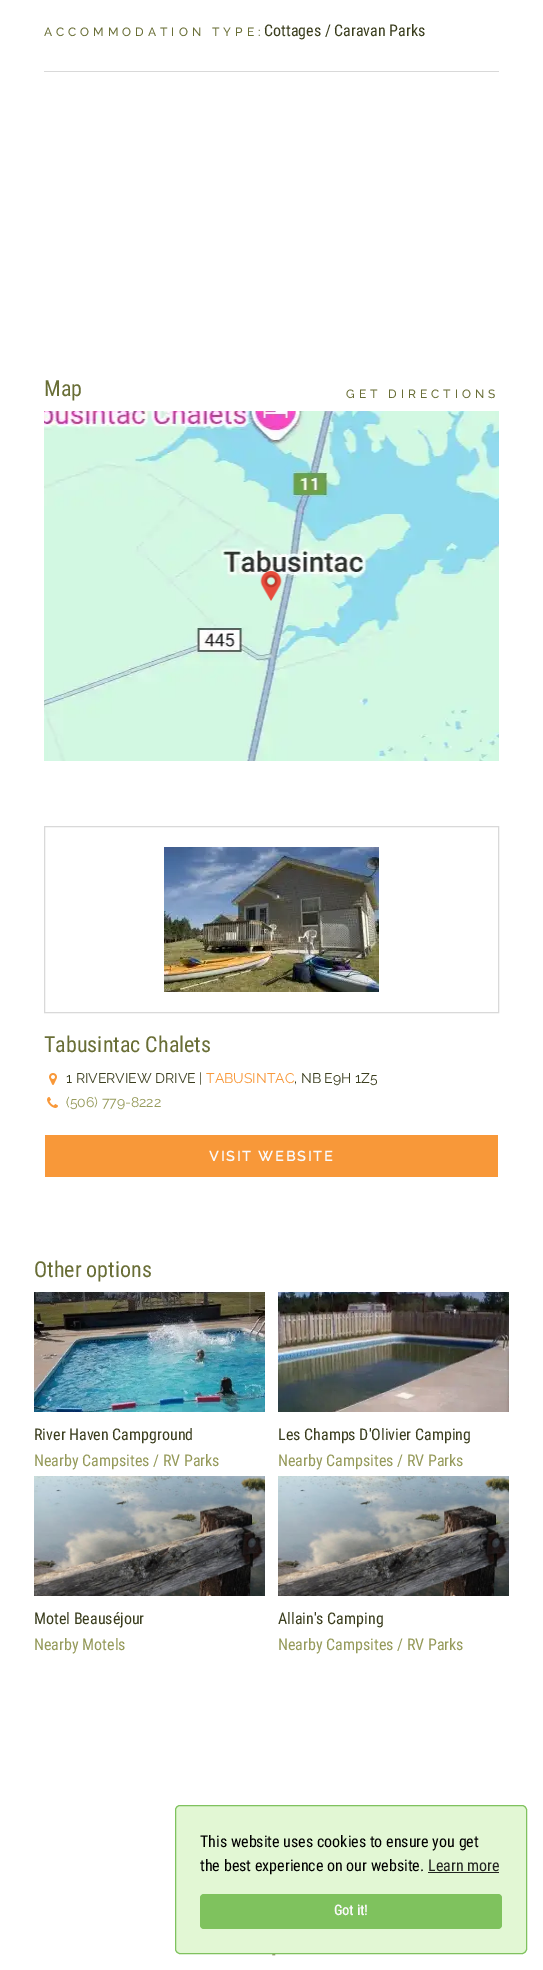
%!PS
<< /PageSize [543 1970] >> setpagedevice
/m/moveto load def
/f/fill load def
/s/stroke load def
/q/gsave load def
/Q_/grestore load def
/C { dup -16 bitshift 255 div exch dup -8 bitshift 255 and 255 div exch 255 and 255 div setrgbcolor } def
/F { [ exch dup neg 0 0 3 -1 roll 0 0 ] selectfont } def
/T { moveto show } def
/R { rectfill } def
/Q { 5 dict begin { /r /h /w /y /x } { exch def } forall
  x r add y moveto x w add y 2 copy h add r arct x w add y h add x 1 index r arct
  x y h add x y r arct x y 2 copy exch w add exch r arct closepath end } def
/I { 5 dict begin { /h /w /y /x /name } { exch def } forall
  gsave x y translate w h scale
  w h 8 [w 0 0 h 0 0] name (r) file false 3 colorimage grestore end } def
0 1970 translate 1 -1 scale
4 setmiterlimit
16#FFFFFF C
0 0 543 1970 R
16#D9D9D9 C
44 71 455 1 R
/Raleway-Medium 12 F
16#696E36 C
44 36 m 4 0 (ACCOMMODATION TYPE:) ashow
/RobotoCondensed-Regular 16 F
16#3A3D1D C
(Cottages / Caravan Parks) 264 36 T
/RobotoCondensed-Regular 22 F
16#696E36 C
(Map) 44 396 T
/Raleway-Medium 12 F
346 398 m 4 0 (GET DIRECTIONS) ashow
(1.rgb) 44 411 455 350 I
(2.rgb) 260 571 22 30 I
16#D9D9D9 C
44.5 826.5 454 186 rectstroke
(3.rgb) 164 847 215 145 I
/RobotoCondensed-Regular 22 F
16#696E36 C
(Tabusintac Chalets) 44 1052 T
(4.rgb) 49 1073 8 12 I
/Raleway-Regular 14 F
16#3A3D1D C
(1 RIVERVIEW DRIVE |) 66 1083 T
16#F89839 C
(TABUSINTAC) 206 1083 T
16#3A3D1D C
(, NB E9H 1Z5) 294 1083 T
(5.rgb) 47 1097 11 11 I
16#959A5A C
(\(506\) 779-8222) 66 1107 T
16#F89839 C
45 1135 453 42 R
/Raleway-Bold 14 F
16#FAFAFA C
209 1161 m 2 0 (VISIT WEBSITE) ashow
/RobotoCondensed-Regular 22 F
16#696E36 C
(Other options) 34 1277 T
(6.rgb) 34 1292 231 120 I
/RobotoCondensed-Regular 16 F
16#3A3D1D C
(River Haven Campground) 34 1440 T
16#959A5A C
(Nearby Campsites / RV Parks) 34 1466 T
(7.rgb) 278 1292 231 120 I
16#3A3D1D C
(Les Champs D'Olivier Camping) 278 1440 T
16#959A5A C
(Nearby Campsites / RV Parks) 278 1466 T
(8.rgb) 34 1476 231 120 I
16#3A3D1D C
(Motel Beauséjour) 34 1624 T
16#959A5A C
(Nearby Motels) 34 1650 T
(8.rgb) 278 1476 231 120 I
16#3A3D1D C
(Allain's Camping) 278 1624 T
16#959A5A C
(Nearby Campsites / RV Parks) 278 1650 T
/RobotoCondensed-Regular 14 F
16#696E36 C
(-) 272 1959 T
16#E2F7D4 C
175.5 1805.5 351 148 4.5 Q q f Q_
16#7FC25E C
s
/RobotoCondensed-Regular 16 F
16#000000 C
(This website uses cookies to ensure you get) 200 1847 T
(the best experience on our website.) 200 1871 T
16#222520 C
(Learn more) 428 1871 T
428 1872 71 1 R
16#7FC25E C
200 1894 302 35 4 Q f
/RobotoCondensed-Bold 14 F
16#FAFAFA C
(Got it!) 334 1915 T
showpage
